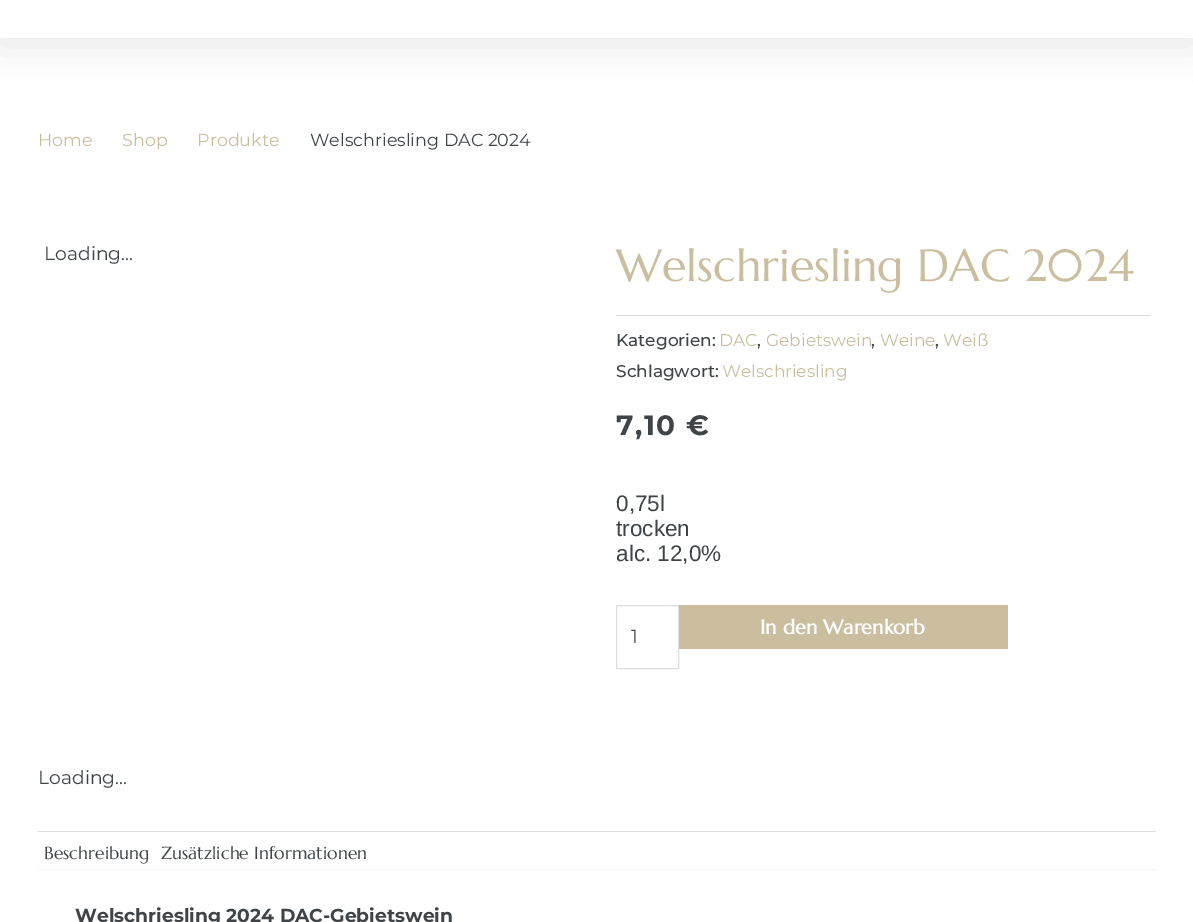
%!PS
<< /PageSize [1193 922] /PageUsesTransparency true >> setpagedevice
/m/moveto load def
/C { dup -16 bitshift 255 div exch dup -8 bitshift 255 and 255 div exch 255 and 255 div setrgbcolor } def
/F { [ exch dup neg 0 0 3 -1 roll 0 0 ] selectfont } def
/T { moveto show } def
/R { rectfill } def
/A { dup .setfillconstantalpha .setstrokeconstantalpha } def
/Q { 5 dict begin { /r /h /w /y /x } { exch def } forall
  x r add y moveto x w add y 2 copy h add r arct x w add y h add x 1 index r arct
  x y h add x y r arct x y 2 copy exch w add exch r arct closepath end } def
/S { 12 dict begin { /a /b /q /h /w /y /x } { exch def } forall gsave /was 0 def
  9 -2 -9 { dup b mul 4 div /e exch def 1 sub .425 mul 2.718 exch exp 1 add a .99 .min exch div /now exch def
    1 1 now sub 1 was sub div sub A /was now def
    w h .min e 2 mul add 0 gt { x e sub y e sub w e 2 mul add h e 2 mul add
      q e add b .6 mul add w h .min 2 div e add .min 0 .max Q fill } if } for grestore end } def
0 .pushpdf14devicefilter
0 922 translate 1 -1 scale
4 setmiterlimit
16#FFFFFF C
0 0 1193 922 R
16#000000 C
0 -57 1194 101 0 19 .1 S
16#FFFFFF C
0 0 1193 38 R
/Montserrat-Regular 17.5 F
16#CABE9F C
(Home) 38 146 T
(Shop) 122 146 T
(Produkte) 197 146 T
16#3F4448 C
(Welschriesling DAC 2024) 310 146 T
/Montserrat-Regular 18.75 F
(Loading...) 44 260 T
/Marcellus-Regular 45 F
16#CABE9F C
(Welschriesling DAC 2024) 616 281 T
16#DDDDDD C
616 315 534 1 R
/Montserrat-Medium 17 F
16#3F4448 C
(Kategorien:) 616 346 T
/Montserrat-Regular 17 F
16#CABE9F C
(DAC) 719 346 T
/Montserrat-Medium 17 F
16#3F4448 C
(,) 757 346 T
/Montserrat-Regular 17 F
16#CABE9F C
(Gebietswein) 766 346 T
/Montserrat-Medium 17 F
16#3F4448 C
(,) 871 346 T
/Montserrat-Regular 17 F
16#CABE9F C
(Weine) 880 346 T
/Montserrat-Medium 17 F
16#3F4448 C
(,) 935 346 T
/Montserrat-Regular 17 F
16#CABE9F C
(Weiß) 943 346 T
/Montserrat-Medium 17 F
16#3F4448 C
(Schlagwort:) 616 377 T
/Montserrat-Regular 17 F
16#CABE9F C
(Welschriesling) 722 377 T
/Montserrat-Bold 28 F
16#3F4448 C
616 435 m 1.5 0 (7,10 €) ashow
/LiberationSans-Regular 22.5 F
(0,75l) 616 511 T
(trocken) 616 536 T
(alc. 12,0%) 616 561 T
16#DDDDDD C
616.5 605.5 62 63 rectstroke
/Montserrat-Regular 18.75 F
16#3F4448 C
(1) 631 643 T
16#CABE9F C
679 605 329 44 R
/Marcellus-Bold 20 F
16#FFFFFF C
(In den Warenkorb) 760 634 T
/Montserrat-Regular 18.75 F
16#3F4448 C
(Loading...) 38 784 T
16#DDDDDD C
38 831 1118 1 R
/Marcellus-Regular 17.5 F
16#3F4448 C
(Beschreibung) 44 859 T
(Zusätzliche Informationen) 161 859 T
16#F6F6F6 C
38 869 1118 1 R
/Montserrat-Bold 18.75 F
16#3F4448 C
(Welschriesling 2024 DAC-Gebietswein) 75 922 T
.poppdf14devicefilter showpage
